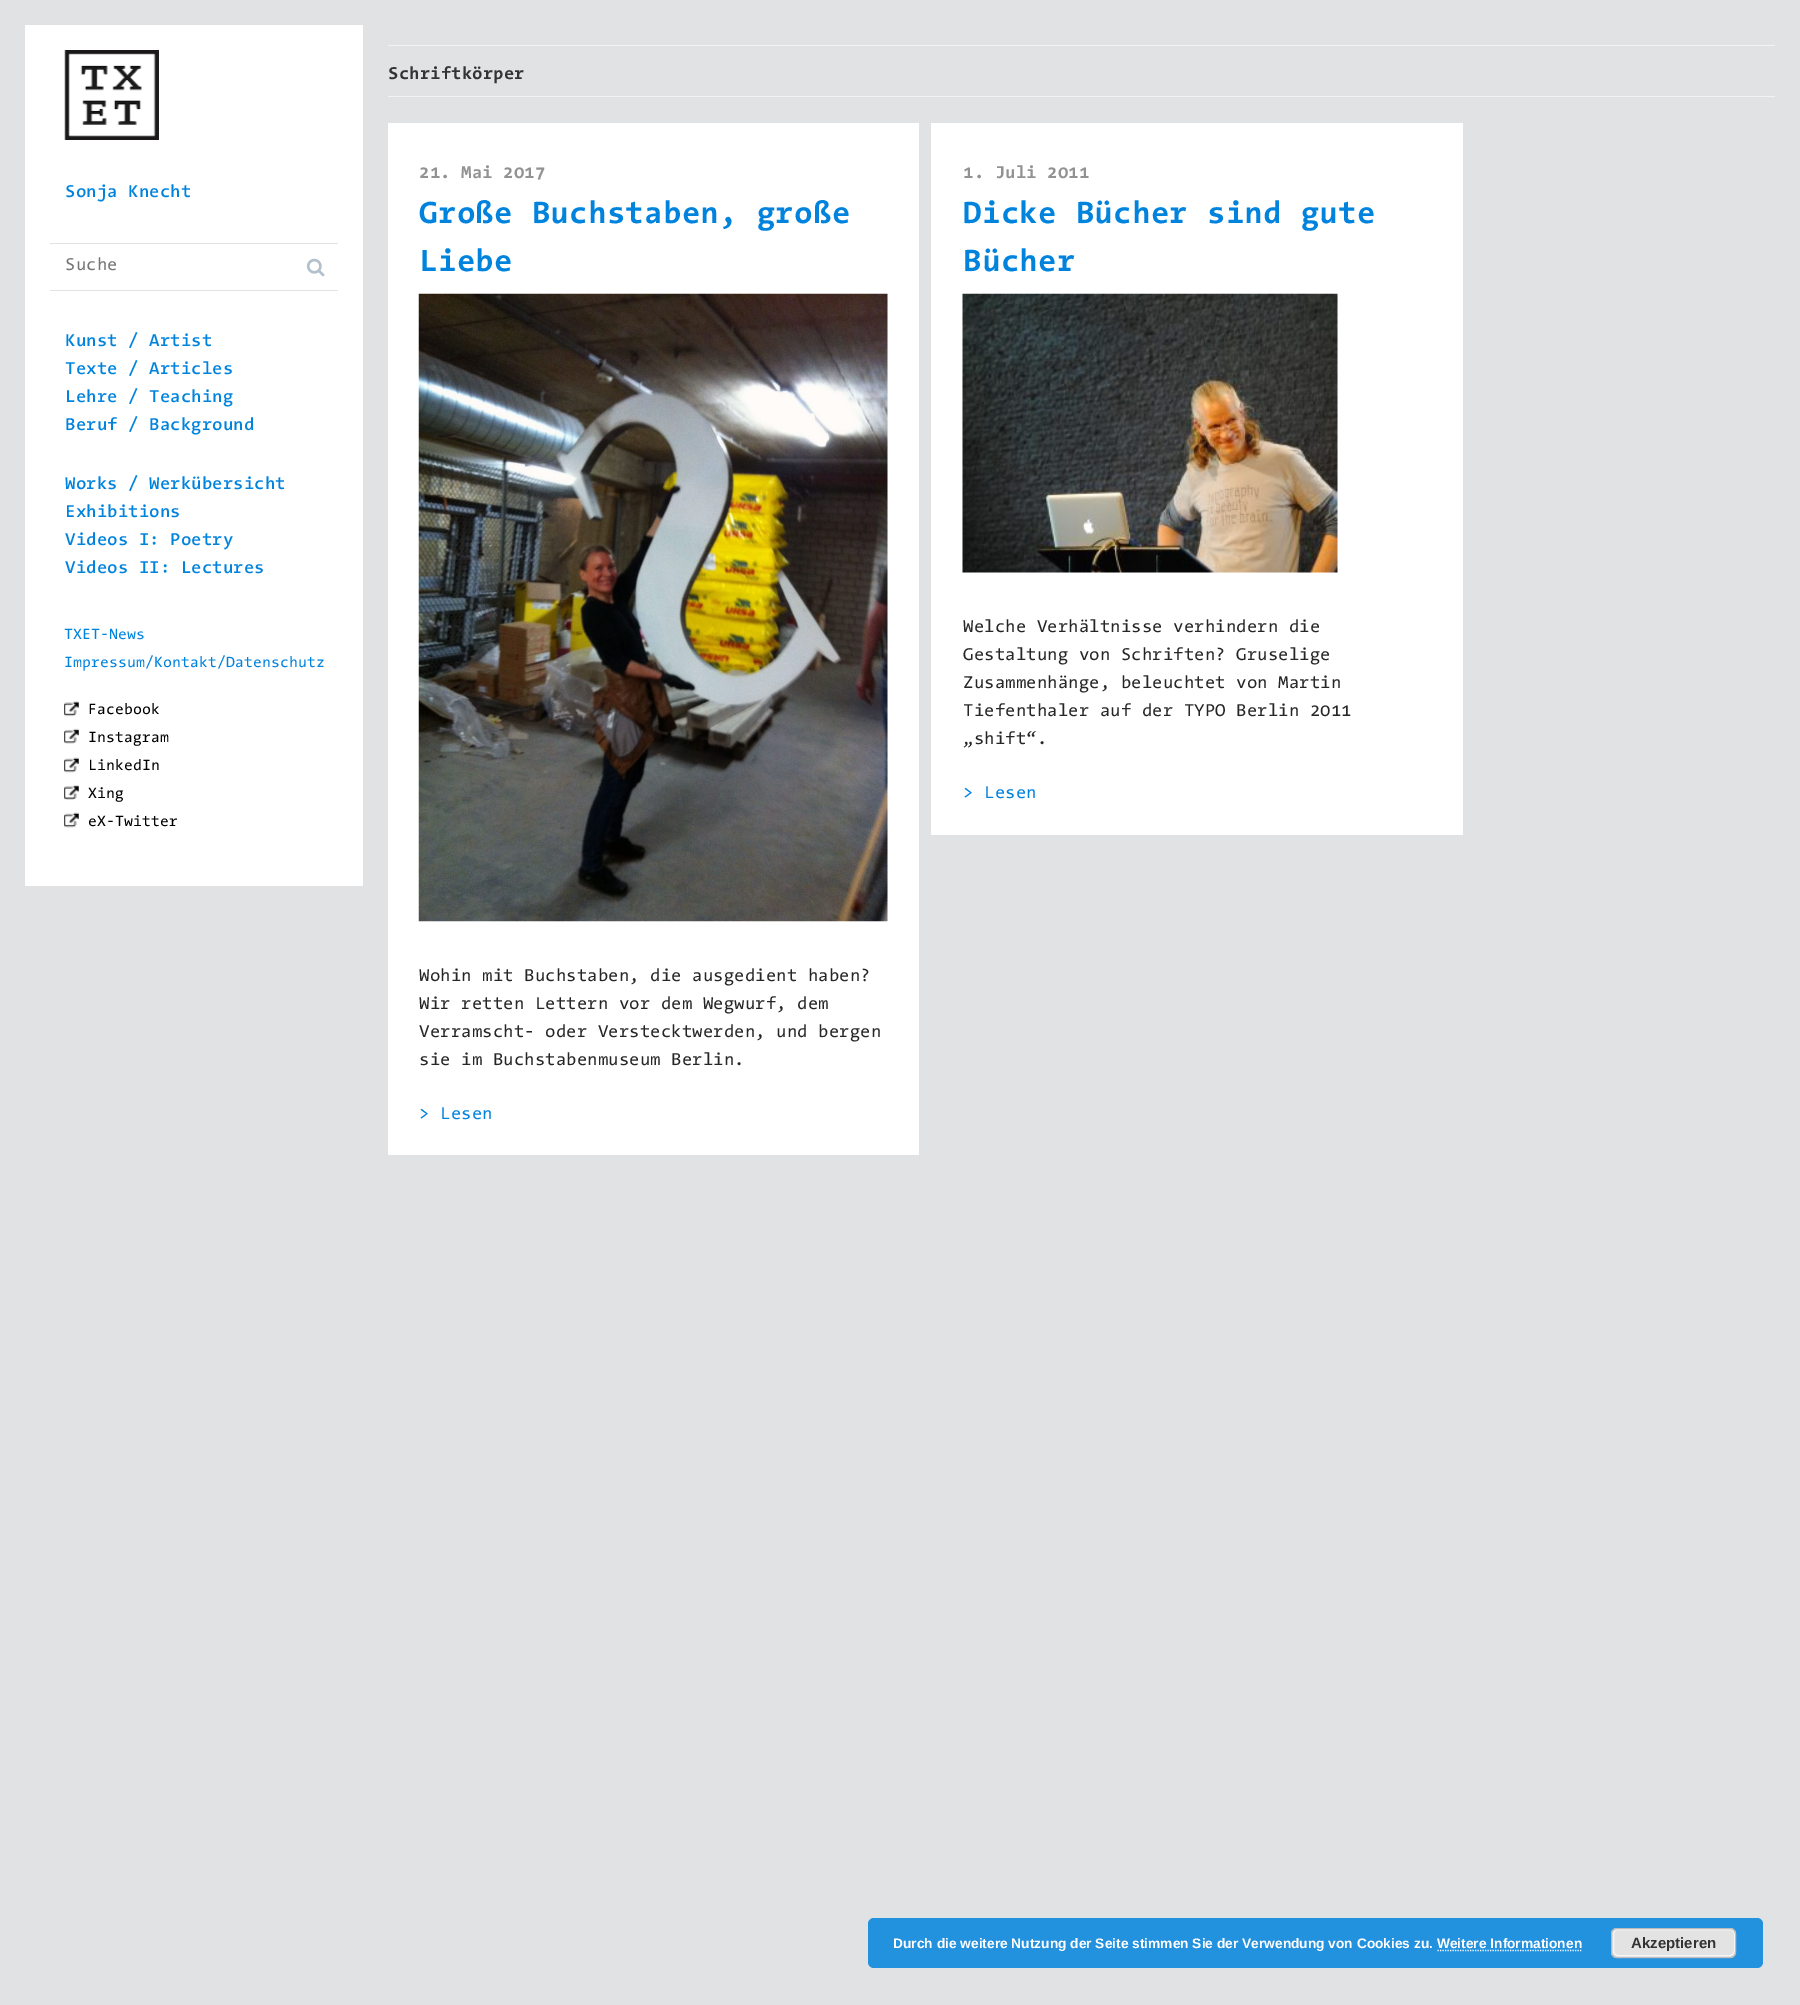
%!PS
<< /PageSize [1800 2005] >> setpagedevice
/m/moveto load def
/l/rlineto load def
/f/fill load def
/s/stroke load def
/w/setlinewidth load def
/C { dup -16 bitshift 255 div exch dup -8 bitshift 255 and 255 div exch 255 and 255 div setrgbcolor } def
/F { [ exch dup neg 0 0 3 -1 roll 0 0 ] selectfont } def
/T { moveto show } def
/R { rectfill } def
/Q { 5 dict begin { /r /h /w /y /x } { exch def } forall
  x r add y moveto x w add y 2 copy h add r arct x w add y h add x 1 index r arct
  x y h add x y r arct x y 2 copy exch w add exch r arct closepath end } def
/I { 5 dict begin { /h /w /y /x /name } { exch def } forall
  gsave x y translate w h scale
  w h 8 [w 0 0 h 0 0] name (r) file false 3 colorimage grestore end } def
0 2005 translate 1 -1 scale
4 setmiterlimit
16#E1E2E4 C
0 0 1800 2005 R
16#FFFFFF C
25 25 338 861 R
(1.rgb) 64 50 95 90 I
/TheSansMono-SemiBold 17.5 F
16#0083DD C
(Sonja Knecht) 65 197 T
16#E1E2E4 C
50 243 288 1 R
50 290 288 1 R
(2.rgb) 306 258 19 19 I
/TheSansMono-Regular 17.5 F
16#757575 C
(Suche) 65 270 T
/TheSansMono-SemiBold 17.5 F
16#0083DD C
(Kunst / Artist) 65 346 T
(Texte / Articles) 65 374 T
(Lehre / Teaching) 65 402 T
(Beruf / Background) 65 430 T
(Works / Werkübersicht) 65 489 T
(Exhibitions) 65 517 T
(Videos I: Poetry) 65 545 T
(Videos II: Lectures) 65 573 T
/TheSansMono-Regular 15 F
(TXET-News) 64 639 T
(Impressum/Kontakt/Datenschutz) 64 667 T
(3.rgb) 64 701 15 16 I
16#000000 C
(Facebook) 88 714 T
(4.rgb) 64 728 15 16 I
(Instagram) 88 742 T
(5.rgb) 64 757 15 16 I
(LinkedIn) 88 770 T
(6.rgb) 64 785 15 15 I
(Xing) 88 798 T
(5.rgb) 64 812 15 16 I
(eX-Twitter) 88 826 T
16#F3F3F4 C
388 45 1387 1 R
388 96 1387 1 R
/TheSansMono-Bold 17.5 F
16#333333 C
(Schriftkörper) 388 79 T
16#FFFFFF C
388 123 531 1032 R
16#929292 C
(21. Mai 2017) 419 178 T
/TheSansMono-Bold 31.25 F
16#0083DD C
(Große Buchstaben, große) 419 223 T
(Liebe) 419 271 T
(7.rgb) 418 293 470 629 I
/TheSansMono-Regular 17.5 F
16#262626 C
(Wohin mit Buchstaben, die ausgedient haben?) 419 981 T
(Wir retten Lettern vor dem Wegwurf, dem) 419 1009 T
(Verramscht- oder Verstecktwerden, und bergen) 419 1037 T
(sie im Buchstabenmuseum Berlin.) 419 1065 T
16#0083DD C
(> Lesen) 419 1119 T
16#FFFFFF C
931 123 532 712 R
/TheSansMono-Bold 17.5 F
16#929292 C
(1. Juli 2011) 963 178 T
/TheSansMono-Bold 31.25 F
16#0083DD C
(Dicke Bücher sind gute) 963 223 T
(Bücher) 963 271 T
(8.rgb) 962 293 376 280 I
/TheSansMono-Regular 17.5 F
16#262626 C
(Welche Verhältnisse verhindern die) 963 632 T
(Gestaltung von Schriften? Gruselige) 963 660 T
(Zusammenhänge, beleuchtet von Martin) 963 688 T
(Tiefenthaler auf der TYPO Berlin 2011) 963 716 T
(„shift“.) 963 744 T
16#0083DD C
(> Lesen) 963 798 T
16#2291DE C
868 1918 895 50 6 Q f
/LiberationSans-Bold 13.75 F
16#FFFFFF C
(Durch die weitere Nutzung der Seite stimmen Sie der Verwendung von Cookies zu. Weitere Informationen) 893 1948 T
16#E3E3E3 C
1611 1928 125 30 6 Q f
16#F6F6F6 C
1613.5 1929.5 121 26 4.5 Q s
16#BBBBBB C
1611.5 1928.5 124 29 5.5 Q s
/LiberationSans-Bold 15 F
16#333333 C
(Akzeptieren) 1631 1948 T
16#FFFFFF C
1.2 w
[1.25 1.25] 0 setdash
1437.5 1950.5 m 145 0 l s
showpage
